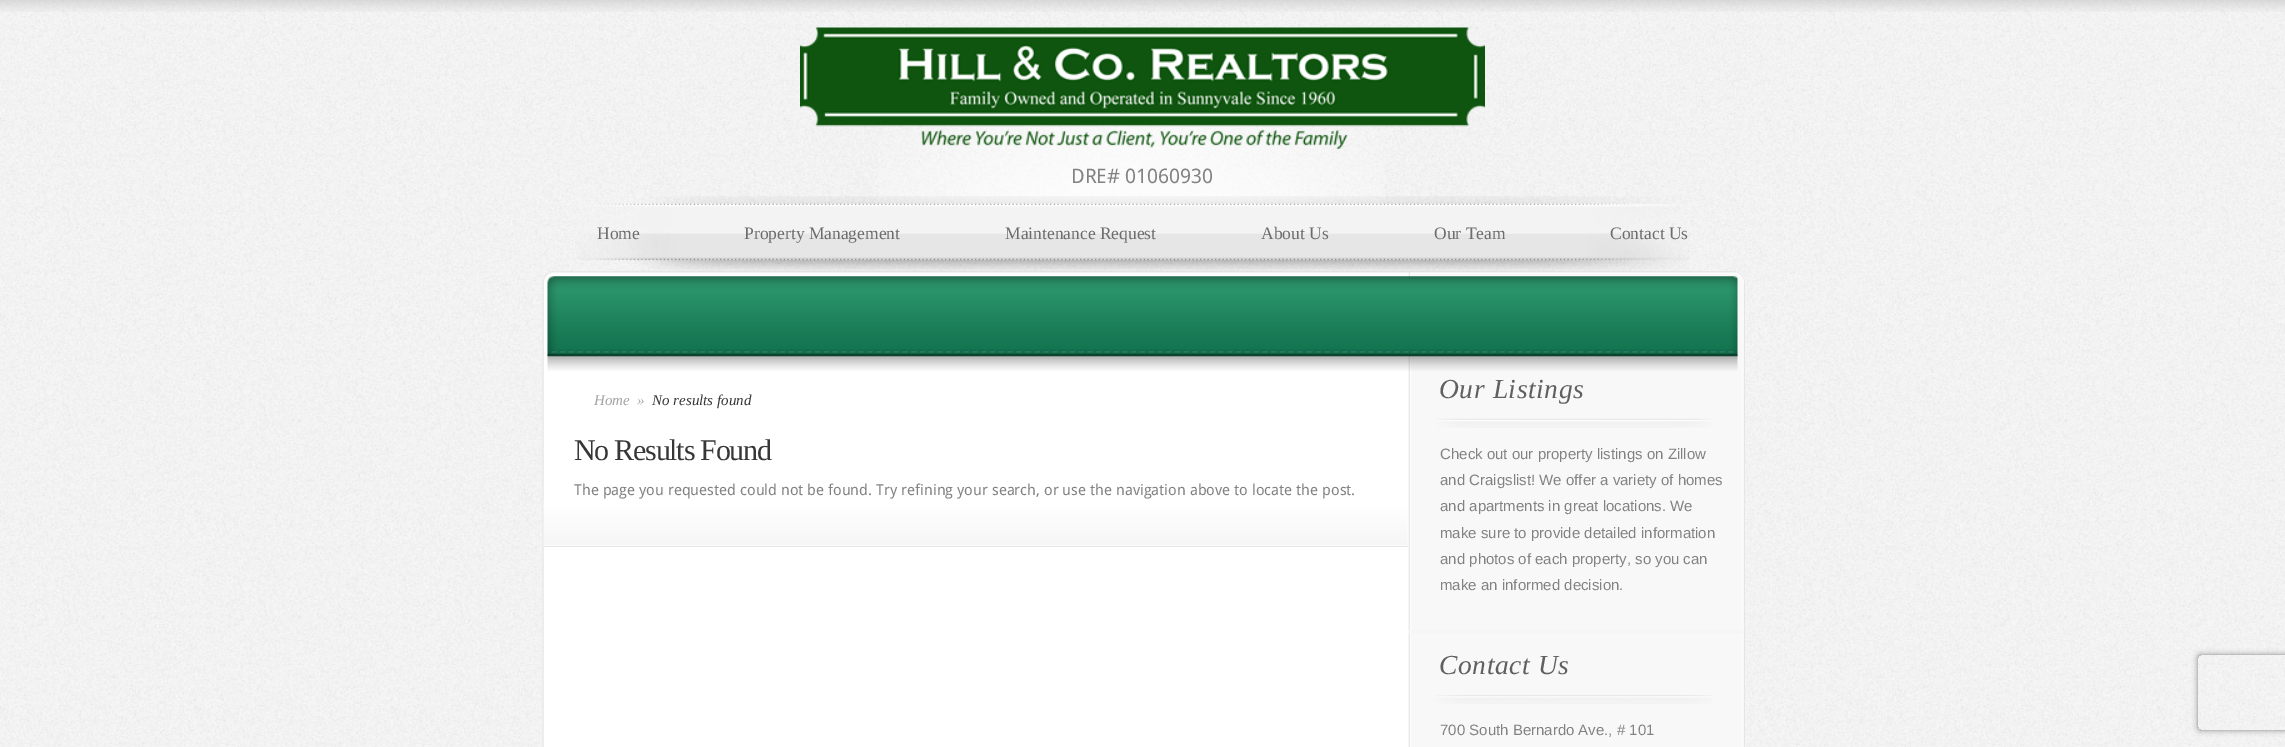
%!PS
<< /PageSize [2285 747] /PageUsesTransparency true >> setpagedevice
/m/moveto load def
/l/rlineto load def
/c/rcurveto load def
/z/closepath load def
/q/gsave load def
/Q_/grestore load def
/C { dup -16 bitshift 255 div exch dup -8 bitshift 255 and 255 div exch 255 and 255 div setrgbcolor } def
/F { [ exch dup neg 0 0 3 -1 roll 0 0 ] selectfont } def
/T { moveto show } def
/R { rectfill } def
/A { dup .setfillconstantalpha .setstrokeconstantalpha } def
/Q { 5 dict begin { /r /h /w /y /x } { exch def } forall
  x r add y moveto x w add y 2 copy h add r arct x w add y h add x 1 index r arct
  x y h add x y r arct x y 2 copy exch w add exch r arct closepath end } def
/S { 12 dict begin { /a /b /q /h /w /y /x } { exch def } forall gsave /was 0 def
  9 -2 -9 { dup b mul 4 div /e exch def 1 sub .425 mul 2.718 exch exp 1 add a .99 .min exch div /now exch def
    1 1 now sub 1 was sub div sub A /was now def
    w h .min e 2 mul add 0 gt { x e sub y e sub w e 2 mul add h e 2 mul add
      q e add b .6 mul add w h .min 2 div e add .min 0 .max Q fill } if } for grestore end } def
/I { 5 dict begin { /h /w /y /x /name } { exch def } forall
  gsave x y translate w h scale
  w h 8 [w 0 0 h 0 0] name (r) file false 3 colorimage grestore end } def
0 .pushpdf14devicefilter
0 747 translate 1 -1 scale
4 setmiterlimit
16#FFFFFF C
0 0 2285 747 R
(1.rgb) 0 0 2285 747 I
(2.rgb) 0 0 2285 12 I
(3.rgb) 879 124 506 80 I
(4.rgb) 800 27 685 122 I
/DroidSans-Regular 20 F
16#828282 C
(DRE# 01060930) 1071 183 T
(6.rgb) 542 271 1203 86 I
(5.rgb) 577 196 1113 76 I
/LiberationSerif-Regular 17.5 F
16#6C6C6C C
(Home) 597 239 T
(Property Management) 744 239 T
(Maintenance Request) 1005 239 T
(About Us) 1261 239 T
(Our Team) 1434 239 T
(Contact Us) 1610 239 T
(9.rgb) 542 356 1203 391 I
(7.rgb) 547 276 1191 81 I
(8.rgb) 547 353 1191 18 I
/LiberationSerif-Italic 15 F
16#A3A3A3 C
(Home) 594 405 T
(») 637 405 T
16#373737 C
(No results found) 652 405 T
(10.rgb) 543 499 865 47 I
16#E5E5E5 C
544 546 864 1 R
/LiberationSerif-Regular 30 F
16#373737 C
574 460 m -1.25 0 (No Results Found) ashow
/DroidSans-Regular 15 F
16#828282 C
(The page you requested could not be found. Try refining your search, or use the navigation above to locate the post.) 574 495 T
16#F6F6F6 C
1408 630 336 3 R
(11.rgb) 1437 418 275 10 I
/LiberationSerif-Italic 27.5 F
16#616060 C
1439 398 m .6 0 (Our Listings) ashow
/LiberationSans-Regular 15 F
16#828282 C
(Check out our property listings on Zillow) 1440 459 T
(and Craigslist! We offer a variety of homes) 1440 485 T
(and apartments in great locations. We) 1440 511 T
(make sure to provide detailed information) 1440 538 T
(and photos of each property, so you can) 1440 564 T
(make an informed decision.) 1440 590 T
(12.rgb) 1435 695 277 9 I
/LiberationSerif-Italic 27.5 F
16#616060 C
1439 674 m .6 0 (Contact Us) ashow
/LiberationSans-Regular 15 F
16#828282 C
(700 South Bernardo Ave., # 101) 1440 735 T
q
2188 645 m 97 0 l 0 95 l -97 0 l z 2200.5 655 m 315 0 l 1.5 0 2.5 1 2.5 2.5 c 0 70 l 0 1.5 -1 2.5 -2.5 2.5 c -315 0 l -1.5 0 -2.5 -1 -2.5 -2.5 c 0 -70 l 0 -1.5 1 -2.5 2.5 -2.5 c z eoclip newpath
16#808080 C
2198 655 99 75 2.5 3 1 S
Q_
.poppdf14devicefilter showpage
